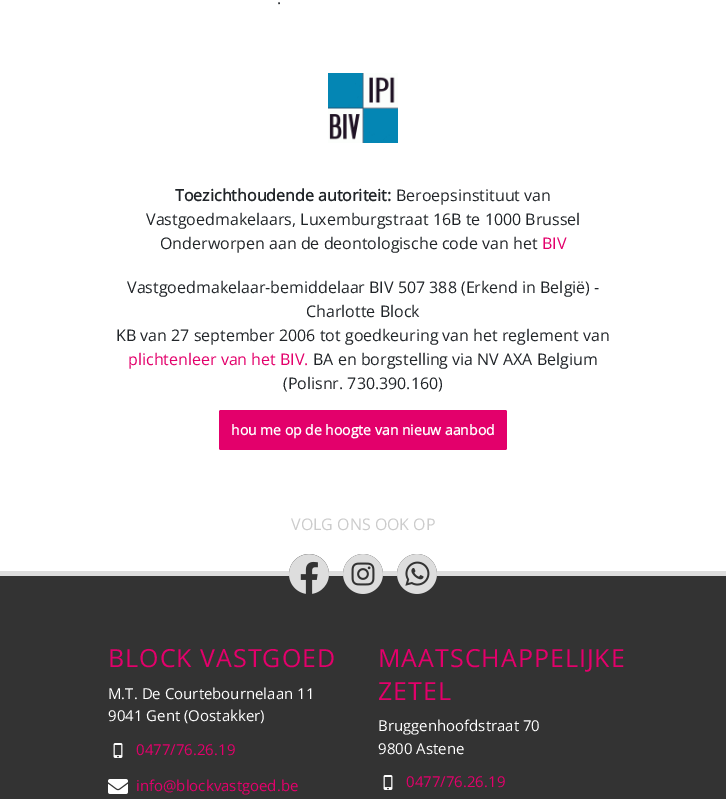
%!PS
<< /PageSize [726 799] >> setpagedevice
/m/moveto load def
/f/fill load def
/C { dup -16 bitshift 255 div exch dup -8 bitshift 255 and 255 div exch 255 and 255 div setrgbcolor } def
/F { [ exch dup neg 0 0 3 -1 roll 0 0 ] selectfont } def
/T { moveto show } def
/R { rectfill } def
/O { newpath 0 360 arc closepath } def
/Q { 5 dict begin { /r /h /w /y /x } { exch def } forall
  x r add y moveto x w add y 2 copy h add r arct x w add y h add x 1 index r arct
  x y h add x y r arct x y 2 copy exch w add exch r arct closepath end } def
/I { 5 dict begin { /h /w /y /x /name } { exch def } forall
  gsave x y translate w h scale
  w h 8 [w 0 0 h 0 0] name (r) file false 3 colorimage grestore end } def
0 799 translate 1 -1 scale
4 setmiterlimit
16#FFFFFF C
0 0 726 799 R
/OpenSans-Regular 16 F
16#212529 C
(.) 277 4 T
(1.rgb) 328 73 70 70 I
/OpenSans-Bold 16 F
(Toezichthoudende autoriteit:) 175 201 T
/OpenSans-Regular 16 F
(Beroepsinstituut van) 396 201 T
(Vastgoedmakelaars, Luxemburgstraat 16B te 1000 Brussel) 146 225 T
(Onderworpen aan de deontologische code van het) 160 249 T
16#E3006B C
(BIV) 542 249 T
16#212529 C
(Vastgoedmakelaar-bemiddelaar BIV 507 388 \(Erkend in België\) -) 127 293 T
(Charlotte Block) 306 317 T
(KB van 27 september 2006 tot goedkeuring van het reglement van) 116 341 T
16#E3006B C
(plichtenleer van het BIV.) 128 365 T
16#212529 C
(BA en borgstelling via NV AXA Belgium) 313 365 T
(\(Polisnr. 730.390.160\)) 283 389 T
16#E3006B C
219 410 288 40 2 Q f
/OpenSans-Bold 14 F
16#FFFFFF C
(hou me op de hoogte van nieuw aanbod) 231 435 T
/OpenSans-Regular 16 F
16#CCCCCC C
(VOLG ONS OOK OP) 291 530 T
16#333333 C
0 576 726 223 R
16#DDDDDD C
0 571 726 5 R
16#333333 C
309 574 20 O f
(2.rgb) 289 554 40 40 I
363 574 20 O f
(3.rgb) 343 554 40 40 I
417 574 20 O f
(4.rgb) 397 554 40 40 I
/OpenSans-Regular 25 F
16#E3006B C
108 667 m 1 0 (BLOCK VASTGOED) ashow
/OpenSans-Regular 15 F
16#FFFFFF C
(M.T. De Courtebournelaan 11) 108 699 T
(9041 Gent \(Oostakker\)) 108 721 T
(5.rgb) 113 743 10 15 I
16#E3006B C
(0477/76.26.19) 136 755 T
(6.rgb) 108 779 20 15 I
(info@blockvastgoed.be) 136 791 T
/OpenSans-Regular 25 F
378 667 m 1 0 (MAATSCHAPPELIJKE) ashow
378 700 m 1 0 (ZETEL) ashow
/OpenSans-Regular 15 F
16#FFFFFF C
(Bruggenhoofdstraat 70) 378 731 T
(9800 Astene) 378 754 T
(5.rgb) 383 775 10 15 I
16#E3006B C
(0477/76.26.19) 406 787 T
showpage
